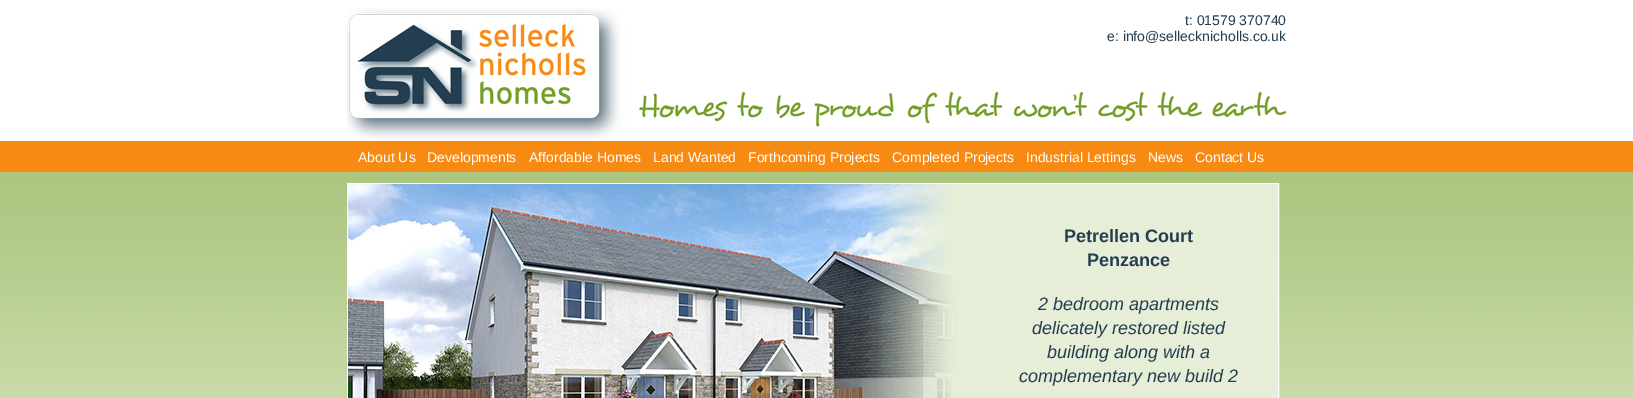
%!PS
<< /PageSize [1633 398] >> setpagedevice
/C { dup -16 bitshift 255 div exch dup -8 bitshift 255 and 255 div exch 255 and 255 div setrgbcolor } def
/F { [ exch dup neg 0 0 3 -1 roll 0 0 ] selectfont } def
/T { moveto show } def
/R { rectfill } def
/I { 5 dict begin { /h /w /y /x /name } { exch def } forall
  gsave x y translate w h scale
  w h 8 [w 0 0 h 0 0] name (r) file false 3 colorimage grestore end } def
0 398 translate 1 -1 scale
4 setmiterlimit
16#FFFFFF C
0 0 1633 398 R
(1.rgb) 0 141 1633 257 I
(2.rgb) 347 8 940 132 I
/LiberationSans-Regular 14 F
16#233E51 C
(t: 01579 370740) 1185 25 T
(e: info@sellecknicholls.co.uk) 1107 41 T
16#FFFFFF C
(About Us) 358 162 T
(Developments) 427 162 T
(Affordable Homes) 529 162 T
(Land Wanted) 653 162 T
(Forthcoming Projects) 748 162 T
(Completed Projects) 892 162 T
(Industrial Lettings) 1026 162 T
(News) 1148 162 T
(Contact Us) 1195 162 T
347.5 183.5 931 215 rectstroke
(3.rgb) 348 184 610 214 I
(4.rgb) 862 184 416 214 I
/LiberationSans-Bold 18 F
16#233E51 C
(Petrellen Court) 1064 242 T
(Penzance) 1087 266 T
/LiberationSans-Italic 18 F
(2 bedroom apartments) 1038 310 T
(delicately restored listed) 1032 334 T
(building along with a) 1047 358 T
(complementary new build 2) 1019 382 T
showpage
